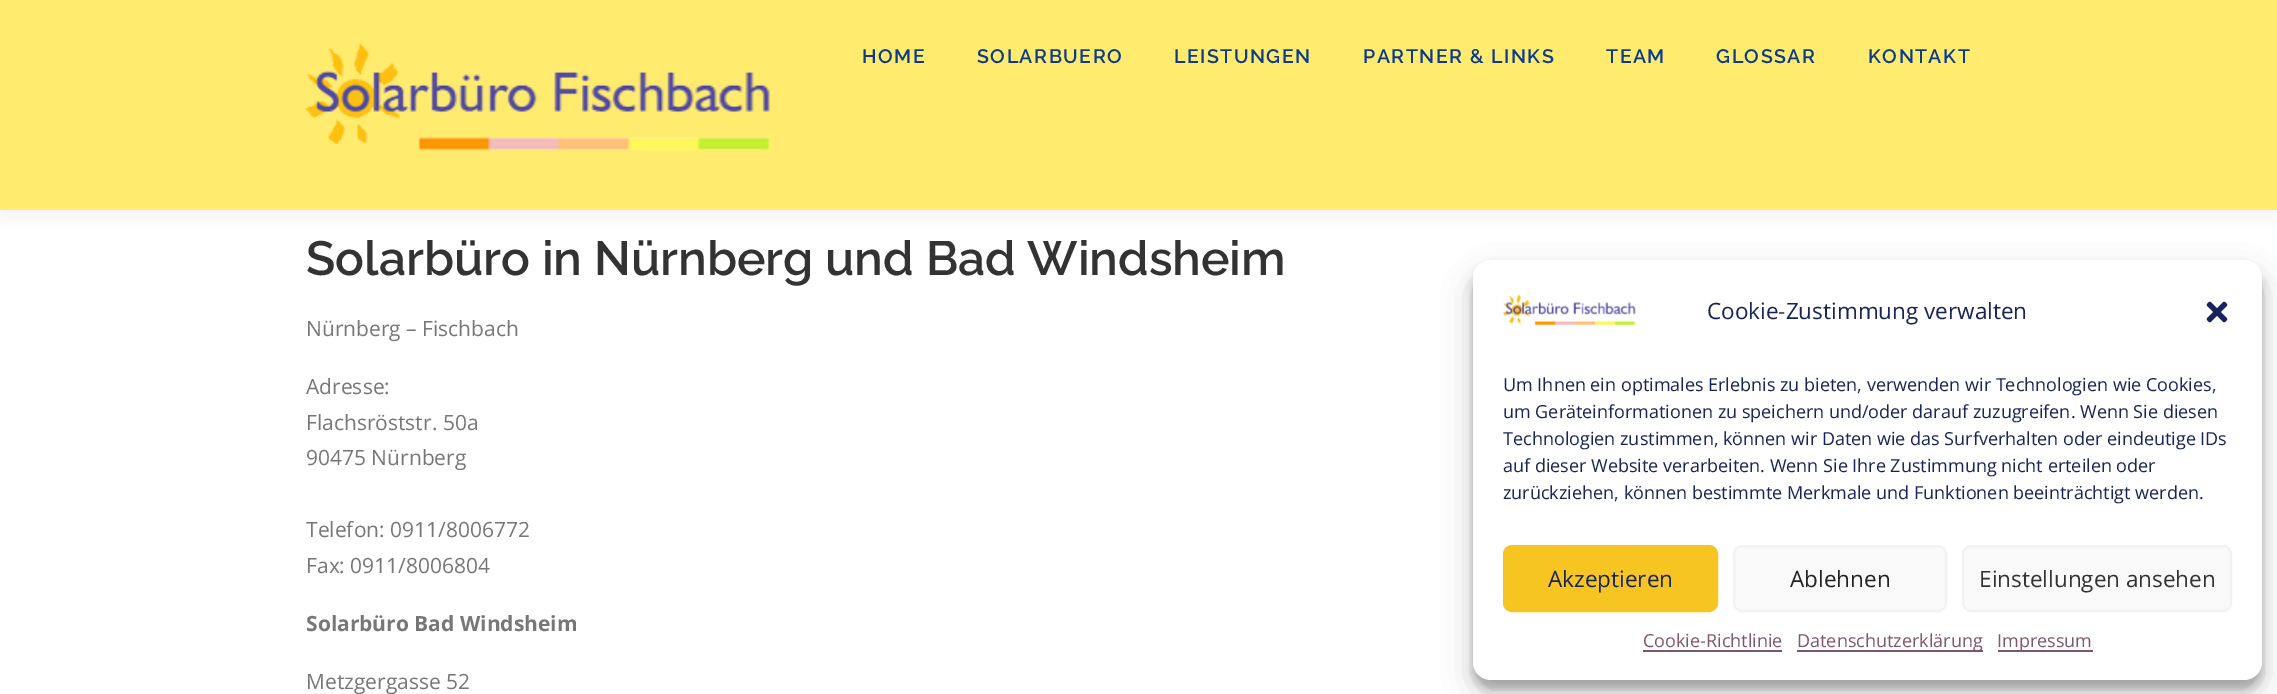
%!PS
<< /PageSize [2277 694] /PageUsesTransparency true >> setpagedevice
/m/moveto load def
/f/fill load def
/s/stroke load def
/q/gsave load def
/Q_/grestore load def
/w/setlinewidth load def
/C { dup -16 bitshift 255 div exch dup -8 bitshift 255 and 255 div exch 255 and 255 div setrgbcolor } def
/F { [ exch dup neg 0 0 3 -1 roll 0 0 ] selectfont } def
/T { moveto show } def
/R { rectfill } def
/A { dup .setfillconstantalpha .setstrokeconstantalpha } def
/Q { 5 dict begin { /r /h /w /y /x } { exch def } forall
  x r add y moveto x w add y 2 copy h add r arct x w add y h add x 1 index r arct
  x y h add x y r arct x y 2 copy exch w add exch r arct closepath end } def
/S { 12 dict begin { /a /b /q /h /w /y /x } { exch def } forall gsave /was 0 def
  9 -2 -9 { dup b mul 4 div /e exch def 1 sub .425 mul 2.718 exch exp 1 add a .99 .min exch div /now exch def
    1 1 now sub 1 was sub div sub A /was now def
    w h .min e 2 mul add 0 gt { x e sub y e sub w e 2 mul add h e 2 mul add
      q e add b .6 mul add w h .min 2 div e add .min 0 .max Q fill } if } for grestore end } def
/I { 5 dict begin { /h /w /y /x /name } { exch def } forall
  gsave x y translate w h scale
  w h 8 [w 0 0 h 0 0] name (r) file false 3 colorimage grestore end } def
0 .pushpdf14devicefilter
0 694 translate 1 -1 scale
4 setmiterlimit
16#FFFFFF C
0 0 2277 694 R
16#323232 C
0 8 2277 210 0 7.5 .06 S
16#FFEB6D C
0 0 2277 210 R
(1.rgb) 306 43 465 108 I
/Raleway-SemiBold 19.5 F
16#0C3B8C C
862 63 m 1.5 0 (HOME) ashow
977 63 m 1.5 0 (SOLARBUERO) ashow
1174 63 m 1.5 0 (LEISTUNGEN) ashow
1363 63 m 1.5 0 (PARTNER & LINKS) ashow
1606 63 m 1.5 0 (TEAM) ashow
1716 63 m 1.5 0 (GLOSSAR) ashow
1868 63 m 1.5 0 (KONTAKT) ashow
/Raleway-SemiBold 48 F
16#333333 C
(Solarbüro in Nürnberg und Bad Windsheim) 306 275 T
/OpenSans-Regular 21 F
16#777777 C
(Nürnberg – Fischbach) 306 336 T
(Adresse:) 306 394 T
(Flachsröststr. 50a) 306 430 T
(90475 Nürnberg) 306 465 T
(Telefon: 0911/8006772) 306 537 T
(Fax: 0911/8006804) 306 573 T
/OpenSans-Bold 21 F
(Solarbüro Bad Windsheim) 306 631 T
/OpenSans-Regular 21 F
(Metzgergasse 52) 306 689 T
16#000000 C
1473 269 789 420 18 4.5 .23 S
1473 275 789 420 18 15 .19 S
16#FFFFFF C
1473 260 789 420 18 Q f
(2.rgb) 1503 293 133 33 I
/OpenSans-Regular 22.5 F
16#182359 C
(Cookie-Zustimmung verwalten) 1707 319 T
(3.rgb) 2206 301 22 22 I
/OpenSans-Regular 18 F
(Um Ihnen ein optimales Erlebnis zu bieten, verwenden wir Technologien wie Cookies,) 1503 391 T
(um Geräteinformationen zu speichern und/oder darauf zuzugreifen. Wenn Sie diesen) 1503 418 T
(Technologien zustimmen, können wir Daten wie das Surfverhalten oder eindeutige IDs) 1503 445 T
(auf dieser Website verarbeiten. Wenn Sie Ihre Zustimmung nicht erteilen oder) 1503 472 T
(zurückziehen, können bestimmte Merkmale und Funktionen beeinträchtigt werden.) 1503 499 T
16#F7C522 C
1504 546 213 65 8 Q q f Q_
2 w
s
/OpenSans-Regular 22.5 F
16#182359 C
(Akzeptieren) 1548 587 T
16#F9F9F9 C
1734 546 212 65 8 Q q f Q_
16#F2F2F2 C
s
16#222222 C
(Ablehnen) 1790 587 T
16#F9F9F9 C
1963 546 268 65 8 Q q f Q_
16#F2F2F2 C
s
16#333333 C
(Einstellungen ansehen) 1979 587 T
/OpenSans-Regular 18 F
16#7C576D C
(Cookie-Richtlinie) 1643 647 T
1643 650 139 2 R
1797 650 186 2 R
(Datenschutzerklärung) 1797 647 T
1998 650 95 2 R
(Impressum) 1997 647 T
.poppdf14devicefilter showpage
